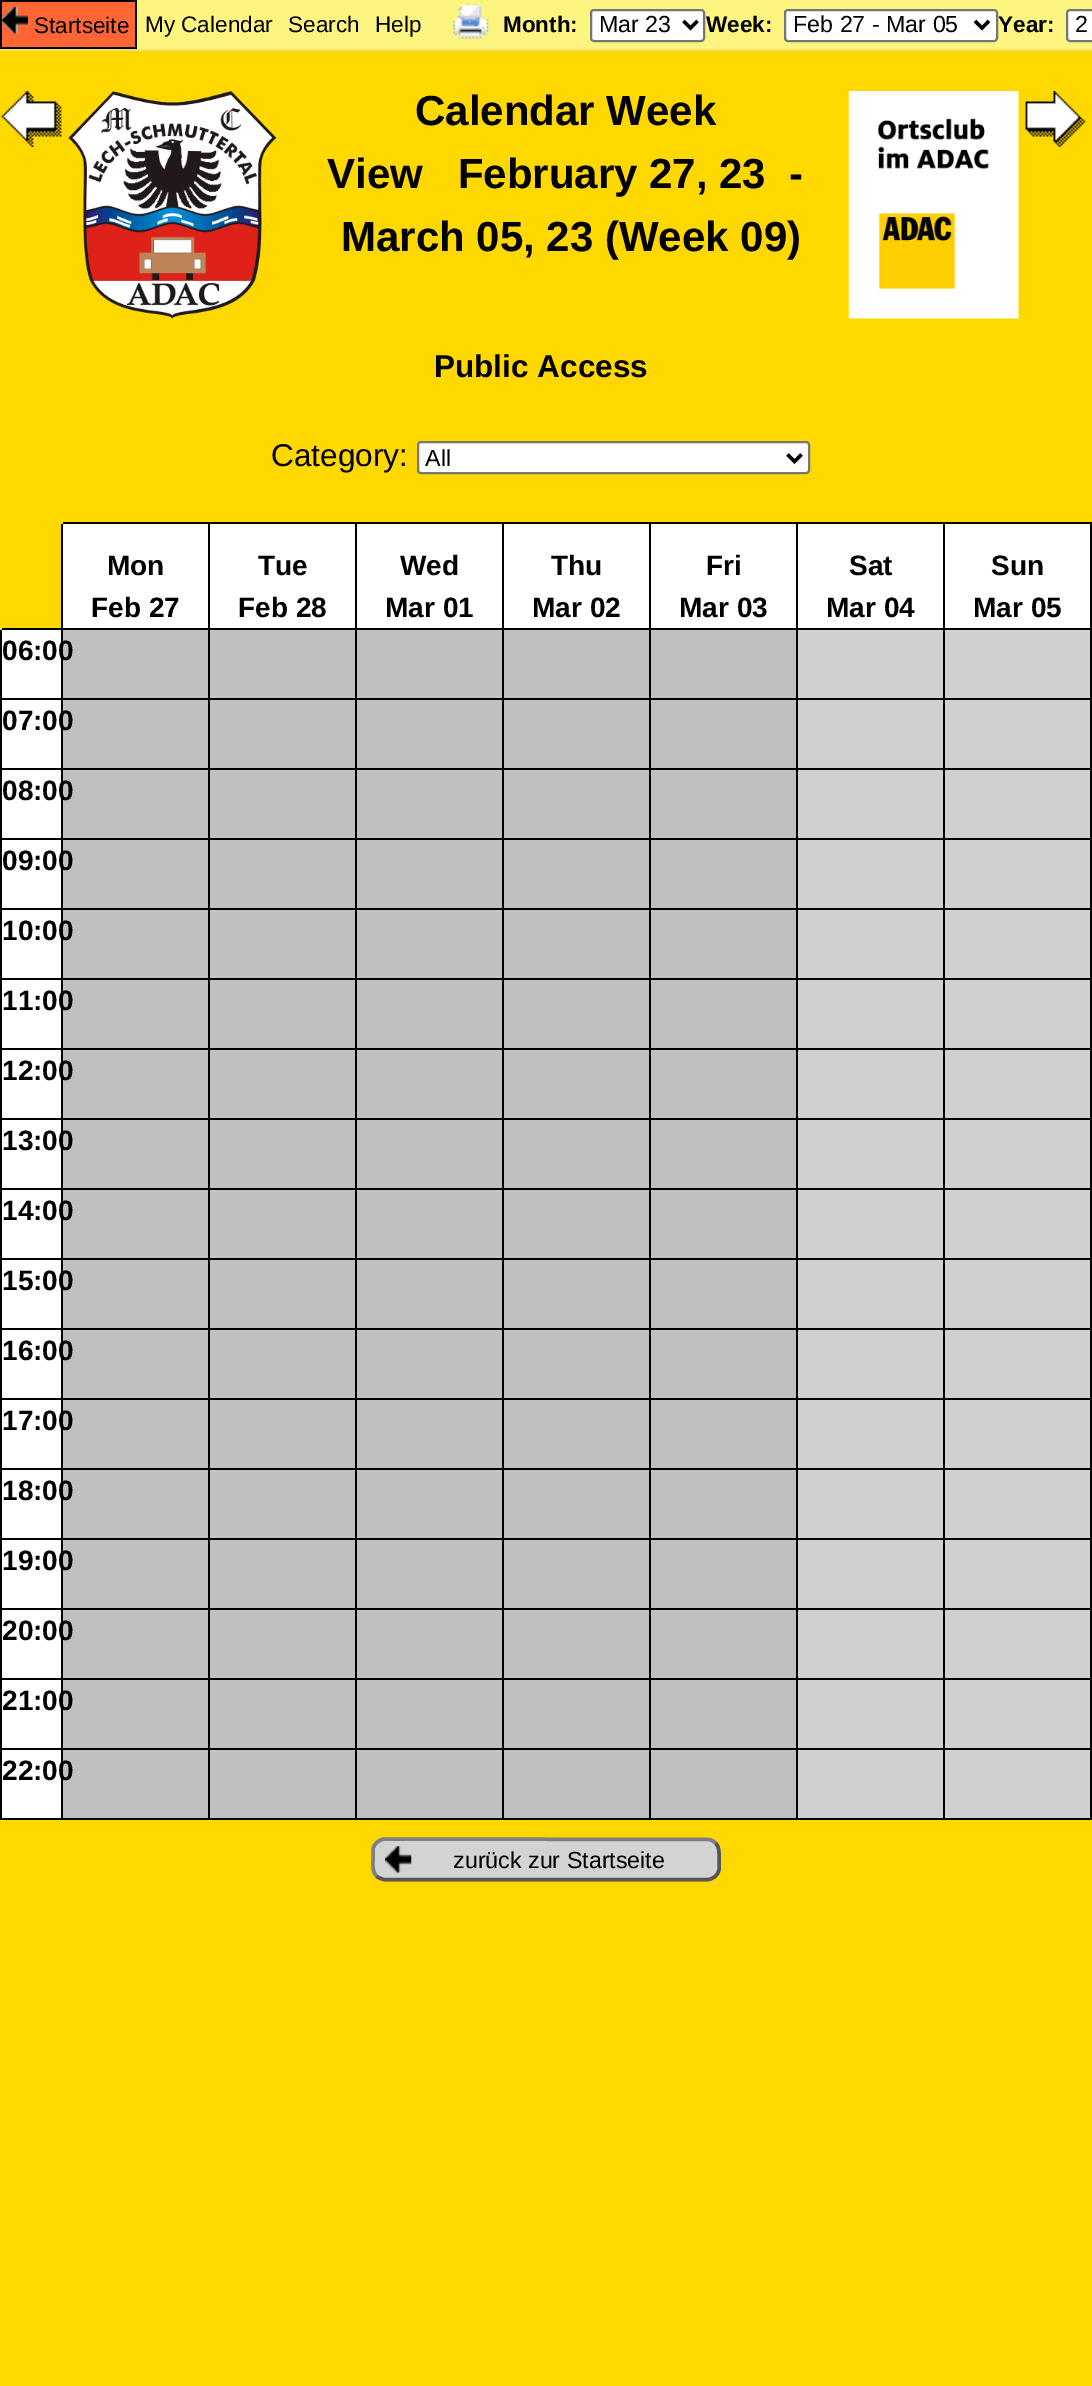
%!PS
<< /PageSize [1092 2386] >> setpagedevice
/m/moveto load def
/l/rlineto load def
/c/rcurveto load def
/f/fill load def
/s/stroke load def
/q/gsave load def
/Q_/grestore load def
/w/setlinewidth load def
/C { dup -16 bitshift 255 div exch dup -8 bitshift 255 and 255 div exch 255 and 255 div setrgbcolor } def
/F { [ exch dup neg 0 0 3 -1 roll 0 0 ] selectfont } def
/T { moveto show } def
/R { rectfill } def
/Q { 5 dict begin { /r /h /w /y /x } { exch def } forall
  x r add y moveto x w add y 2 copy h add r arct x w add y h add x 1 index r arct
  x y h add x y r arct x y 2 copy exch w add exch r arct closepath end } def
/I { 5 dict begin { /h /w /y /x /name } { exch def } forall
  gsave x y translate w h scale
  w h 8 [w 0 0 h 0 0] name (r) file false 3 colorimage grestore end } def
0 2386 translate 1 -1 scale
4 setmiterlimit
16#FFD800 C
0 0 1092 2386 R
16#FCF681 C
137 0 955 49 R
16#FF6633 C
2 2 133 45 R
16#000000 C
0 0 137 2 R
135 0 2 49 R
0 47 137 2 R
0 0 2 49 R
(1.rgb) 1 7 27 27 I
/LiberationSans-Regular 22.5 F
(Startseite) 34 33 T
(My Calendar) 145 32 T
(Search) 288 32 T
(Help) 375 32 T
(2.rgb) 452 3 37 36 I
/LiberationSans-Bold 22.5 F
(Month:) 503 32 T
16#FFFFFF C
591 10 113 31 3 Q q f Q_
16#767676 C
2 w
s
16#000000 C
3.5 w
683.5 21 m 7 7 l 7 -7 l s
/LiberationSans-Regular 23.25 F
(Mar 23) 599 32 T
/LiberationSans-Bold 22.5 F
(Week:) 706 32 T
16#FFFFFF C
785 10 212 31 3 Q q f Q_
16#767676 C
2 w
s
16#000000 C
3.5 w
975 21 m 7 7 l 7 -7 l s
/LiberationSans-Regular 23.25 F
(Feb 27 - Mar 05) 793 32 T
16#F5E169 C
0 49 1092 2 R
/LiberationSans-Bold 22.5 F
16#000000 C
(Year:) 998 32 T
16#FFFFFF C
1067 10 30 31 3 Q q f Q_
16#767676 C
2 w
s
/LiberationSans-Regular 23.25 F
16#000000 C
(2) 1075 32 T
(3.rgb) 1 91 61 56 I
(4.rgb) 68 91 209 228 I
/LiberationSans-Bold 42 F
(Calendar Week) 415 125 T
(View   February 27, 23  -) 327 188 T
(March 05, 23 \(Week 09\)) 341 251 T
/LiberationSans-Bold 31.5 F
(Public Access) 434 377 T
/LiberationSans-Regular 31.5 F
(Category:) 271 466 T
16#FFFFFF C
418 442 391 31 3 Q q f Q_
16#767676 C
s
16#000000 C
3.5 w
787.5 454.5 m 7 7 l 7 -7 l s
/LiberationSans-Regular 23.25 F
(All) 425 466 T
(5.rgb) 848 91 171 228 I
(6.rgb) 1025 91 61 56 I
1090 522 2 1298 R
0 1818 1092 2 R
943 522 149 2 R
943 628 149 2 R
943 698 149 2 R
943 768 149 2 R
943 838 149 2 R
943 908 149 2 R
943 978 149 2 R
943 1048 149 2 R
943 1118 149 2 R
943 1188 149 2 R
943 1258 149 2 R
943 1328 149 2 R
943 1398 149 2 R
943 1468 149 2 R
943 1538 149 2 R
943 1608 149 2 R
943 1678 149 2 R
943 1748 149 2 R
943 1748 2 72 R
796 1748 149 2 R
943 1678 2 72 R
796 1678 149 2 R
943 1608 2 72 R
796 1608 149 2 R
943 1538 2 72 R
796 1538 149 2 R
943 1468 2 72 R
796 1468 149 2 R
943 1398 2 72 R
796 1398 149 2 R
943 1328 2 72 R
796 1328 149 2 R
943 1258 2 72 R
796 1258 149 2 R
943 1188 2 72 R
796 1188 149 2 R
943 1118 2 72 R
796 1118 149 2 R
943 1048 2 72 R
796 1048 149 2 R
943 978 2 72 R
796 978 149 2 R
943 908 2 72 R
796 908 149 2 R
943 838 2 72 R
796 838 149 2 R
943 768 2 72 R
796 768 149 2 R
943 698 2 72 R
796 698 149 2 R
943 628 2 72 R
796 628 149 2 R
943 522 2 108 R
796 522 149 2 R
796 1748 2 72 R
649 1748 149 2 R
796 1678 2 72 R
649 1678 149 2 R
796 1608 2 72 R
649 1608 149 2 R
796 1538 2 72 R
649 1538 149 2 R
796 1468 2 72 R
649 1468 149 2 R
796 1398 2 72 R
649 1398 149 2 R
796 1328 2 72 R
649 1328 149 2 R
796 1258 2 72 R
649 1258 149 2 R
796 1188 2 72 R
649 1188 149 2 R
796 1118 2 72 R
649 1118 149 2 R
796 1048 2 72 R
649 1048 149 2 R
796 978 2 72 R
649 978 149 2 R
796 908 2 72 R
649 908 149 2 R
796 838 2 72 R
649 838 149 2 R
796 768 2 72 R
649 768 149 2 R
796 698 2 72 R
649 698 149 2 R
796 628 2 72 R
649 628 149 2 R
796 522 2 108 R
649 522 149 2 R
649 1748 2 72 R
502 1748 149 2 R
649 1678 2 72 R
502 1678 149 2 R
649 1608 2 72 R
502 1608 149 2 R
649 1538 2 72 R
502 1538 149 2 R
649 1468 2 72 R
502 1468 149 2 R
649 1398 2 72 R
502 1398 149 2 R
649 1328 2 72 R
502 1328 149 2 R
649 1258 2 72 R
502 1258 149 2 R
649 1188 2 72 R
502 1188 149 2 R
649 1118 2 72 R
502 1118 149 2 R
649 1048 2 72 R
502 1048 149 2 R
649 978 2 72 R
502 978 149 2 R
649 908 2 72 R
502 908 149 2 R
649 838 2 72 R
502 838 149 2 R
649 768 2 72 R
502 768 149 2 R
649 698 2 72 R
502 698 149 2 R
649 628 2 72 R
502 628 149 2 R
649 522 2 108 R
502 522 149 2 R
502 1748 2 72 R
355 1748 149 2 R
502 1678 2 72 R
355 1678 149 2 R
502 1608 2 72 R
355 1608 149 2 R
502 1538 2 72 R
355 1538 149 2 R
502 1468 2 72 R
355 1468 149 2 R
502 1398 2 72 R
355 1398 149 2 R
502 1328 2 72 R
355 1328 149 2 R
502 1258 2 72 R
355 1258 149 2 R
502 1188 2 72 R
355 1188 149 2 R
502 1118 2 72 R
355 1118 149 2 R
502 1048 2 72 R
355 1048 149 2 R
502 978 2 72 R
355 978 149 2 R
502 908 2 72 R
355 908 149 2 R
502 838 2 72 R
355 838 149 2 R
502 768 2 72 R
355 768 149 2 R
502 698 2 72 R
355 698 149 2 R
502 628 2 72 R
355 628 149 2 R
502 522 2 108 R
355 522 149 2 R
355 1748 2 72 R
208 1748 149 2 R
355 1678 2 72 R
208 1678 149 2 R
355 1608 2 72 R
208 1608 149 2 R
355 1538 2 72 R
208 1538 149 2 R
355 1468 2 72 R
208 1468 149 2 R
355 1398 2 72 R
208 1398 149 2 R
355 1328 2 72 R
208 1328 149 2 R
355 1258 2 72 R
208 1258 149 2 R
355 1188 2 72 R
208 1188 149 2 R
355 1118 2 72 R
208 1118 149 2 R
355 1048 2 72 R
208 1048 149 2 R
355 978 2 72 R
208 978 149 2 R
355 908 2 72 R
208 908 149 2 R
355 838 2 72 R
208 838 149 2 R
355 768 2 72 R
208 768 149 2 R
355 698 2 72 R
208 698 149 2 R
355 628 2 72 R
208 628 149 2 R
355 522 2 108 R
208 522 149 2 R
208 1748 2 72 R
61 1748 149 2 R
208 1678 2 72 R
61 1678 149 2 R
208 1608 2 72 R
61 1608 149 2 R
208 1538 2 72 R
61 1538 149 2 R
208 1468 2 72 R
61 1468 149 2 R
208 1398 2 72 R
61 1398 149 2 R
208 1328 2 72 R
61 1328 149 2 R
208 1258 2 72 R
61 1258 149 2 R
208 1188 2 72 R
61 1188 149 2 R
208 1118 2 72 R
61 1118 149 2 R
208 1048 2 72 R
61 1048 149 2 R
208 978 2 72 R
61 978 149 2 R
208 908 2 72 R
61 908 149 2 R
208 838 2 72 R
61 838 149 2 R
208 768 2 72 R
61 768 149 2 R
208 698 2 72 R
61 698 149 2 R
208 628 2 72 R
61 628 149 2 R
208 522 2 108 R
61 522 149 2 R
61 1748 2 72 R
0 1748 63 2 R
61 1678 2 72 R
0 1678 63 2 R
61 1608 2 72 R
0 1608 63 2 R
61 1538 2 72 R
0 1538 63 2 R
61 1468 2 72 R
0 1468 63 2 R
61 1398 2 72 R
0 1398 63 2 R
61 1328 2 72 R
0 1328 63 2 R
61 1258 2 72 R
0 1258 63 2 R
61 1188 2 72 R
0 1188 63 2 R
61 1118 2 72 R
0 1118 63 2 R
61 1048 2 72 R
0 1048 63 2 R
61 978 2 72 R
0 978 63 2 R
61 908 2 72 R
0 908 63 2 R
61 838 2 72 R
0 838 63 2 R
61 768 2 72 R
0 768 63 2 R
61 698 2 72 R
0 698 63 2 R
61 628 2 72 R
0 628 63 2 R
61 522 2 108 R
16#FFD800 C
61 522 2 2 R
16#000000 C
0 1748 2 72 R
0 1678 2 72 R
0 1608 2 72 R
0 1538 2 72 R
0 1468 2 72 R
0 1398 2 72 R
0 1328 2 72 R
0 1258 2 72 R
0 1188 2 72 R
0 1118 2 72 R
0 1048 2 72 R
0 978 2 72 R
0 908 2 72 R
0 838 2 72 R
0 768 2 72 R
0 698 2 72 R
0 628 2 72 R
16#FFD800 C
0 628 2 2 R
16#FFFFFF C
63 524 145 104 R
/LiberationSans-Bold 28 F
16#000000 C
(Mon) 107 575 T
(Feb 27) 91 617 T
16#FFFFFF C
210 524 145 104 R
16#000000 C
(Tue) 258 575 T
(Feb 28) 238 617 T
16#FFFFFF C
357 524 145 104 R
16#000000 C
(Wed) 400 575 T
(Mar 01) 385 617 T
16#FFFFFF C
504 524 145 104 R
16#000000 C
(Thu) 551 575 T
(Mar 02) 532 617 T
16#FFFFFF C
651 524 145 104 R
16#000000 C
(Fri) 706 575 T
(Mar 03) 679 617 T
16#FFFFFF C
798 524 145 104 R
16#000000 C
(Sat) 849 575 T
(Mar 04) 826 617 T
16#FFFFFF C
945 524 145 104 R
16#000000 C
(Sun) 991 575 T
(Mar 05) 973 617 T
16#FFFFFF C
2 630 59 68 R
16#C0C0C0 C
63 630 145 68 R
16#000000 C
(06:00) 2 660 T
16#C0C0C0 C
210 630 145 68 R
357 630 145 68 R
504 630 145 68 R
651 630 145 68 R
16#D0D0D0 C
798 630 145 68 R
945 630 145 68 R
16#FFFFFF C
2 700 59 68 R
16#C0C0C0 C
63 700 145 68 R
16#000000 C
(07:00) 2 730 T
16#C0C0C0 C
210 700 145 68 R
357 700 145 68 R
504 700 145 68 R
651 700 145 68 R
16#D0D0D0 C
798 700 145 68 R
945 700 145 68 R
16#FFFFFF C
2 770 59 68 R
16#C0C0C0 C
63 770 145 68 R
16#000000 C
(08:00) 2 800 T
16#C0C0C0 C
210 770 145 68 R
357 770 145 68 R
504 770 145 68 R
651 770 145 68 R
16#D0D0D0 C
798 770 145 68 R
945 770 145 68 R
16#FFFFFF C
2 840 59 68 R
16#C0C0C0 C
63 840 145 68 R
16#000000 C
(09:00) 2 870 T
16#C0C0C0 C
210 840 145 68 R
357 840 145 68 R
504 840 145 68 R
651 840 145 68 R
16#D0D0D0 C
798 840 145 68 R
945 840 145 68 R
16#FFFFFF C
2 910 59 68 R
16#C0C0C0 C
63 910 145 68 R
16#000000 C
(10:00) 2 940 T
16#C0C0C0 C
210 910 145 68 R
357 910 145 68 R
504 910 145 68 R
651 910 145 68 R
16#D0D0D0 C
798 910 145 68 R
945 910 145 68 R
16#FFFFFF C
2 980 59 68 R
16#C0C0C0 C
63 980 145 68 R
16#000000 C
(11:00) 2 1010 T
16#C0C0C0 C
210 980 145 68 R
357 980 145 68 R
504 980 145 68 R
651 980 145 68 R
16#D0D0D0 C
798 980 145 68 R
945 980 145 68 R
16#FFFFFF C
2 1050 59 68 R
16#C0C0C0 C
63 1050 145 68 R
16#000000 C
(12:00) 2 1080 T
16#C0C0C0 C
210 1050 145 68 R
357 1050 145 68 R
504 1050 145 68 R
651 1050 145 68 R
16#D0D0D0 C
798 1050 145 68 R
945 1050 145 68 R
16#FFFFFF C
2 1120 59 68 R
16#C0C0C0 C
63 1120 145 68 R
16#000000 C
(13:00) 2 1150 T
16#C0C0C0 C
210 1120 145 68 R
357 1120 145 68 R
504 1120 145 68 R
651 1120 145 68 R
16#D0D0D0 C
798 1120 145 68 R
945 1120 145 68 R
16#FFFFFF C
2 1190 59 68 R
16#C0C0C0 C
63 1190 145 68 R
16#000000 C
(14:00) 2 1220 T
16#C0C0C0 C
210 1190 145 68 R
357 1190 145 68 R
504 1190 145 68 R
651 1190 145 68 R
16#D0D0D0 C
798 1190 145 68 R
945 1190 145 68 R
16#FFFFFF C
2 1260 59 68 R
16#C0C0C0 C
63 1260 145 68 R
16#000000 C
(15:00) 2 1290 T
16#C0C0C0 C
210 1260 145 68 R
357 1260 145 68 R
504 1260 145 68 R
651 1260 145 68 R
16#D0D0D0 C
798 1260 145 68 R
945 1260 145 68 R
16#FFFFFF C
2 1330 59 68 R
16#C0C0C0 C
63 1330 145 68 R
16#000000 C
(16:00) 2 1360 T
16#C0C0C0 C
210 1330 145 68 R
357 1330 145 68 R
504 1330 145 68 R
651 1330 145 68 R
16#D0D0D0 C
798 1330 145 68 R
945 1330 145 68 R
16#FFFFFF C
2 1400 59 68 R
16#C0C0C0 C
63 1400 145 68 R
16#000000 C
(17:00) 2 1430 T
16#C0C0C0 C
210 1400 145 68 R
357 1400 145 68 R
504 1400 145 68 R
651 1400 145 68 R
16#D0D0D0 C
798 1400 145 68 R
945 1400 145 68 R
16#FFFFFF C
2 1470 59 68 R
16#C0C0C0 C
63 1470 145 68 R
16#000000 C
(18:00) 2 1500 T
16#C0C0C0 C
210 1470 145 68 R
357 1470 145 68 R
504 1470 145 68 R
651 1470 145 68 R
16#D0D0D0 C
798 1470 145 68 R
945 1470 145 68 R
16#FFFFFF C
2 1540 59 68 R
16#C0C0C0 C
63 1540 145 68 R
16#000000 C
(19:00) 2 1570 T
16#C0C0C0 C
210 1540 145 68 R
357 1540 145 68 R
504 1540 145 68 R
651 1540 145 68 R
16#D0D0D0 C
798 1540 145 68 R
945 1540 145 68 R
16#FFFFFF C
2 1610 59 68 R
16#C0C0C0 C
63 1610 145 68 R
16#000000 C
(20:00) 2 1640 T
16#C0C0C0 C
210 1610 145 68 R
357 1610 145 68 R
504 1610 145 68 R
651 1610 145 68 R
16#D0D0D0 C
798 1610 145 68 R
945 1610 145 68 R
16#FFFFFF C
2 1680 59 68 R
16#C0C0C0 C
63 1680 145 68 R
16#000000 C
(21:00) 2 1710 T
16#C0C0C0 C
210 1680 145 68 R
357 1680 145 68 R
504 1680 145 68 R
651 1680 145 68 R
16#D0D0D0 C
798 1680 145 68 R
945 1680 145 68 R
16#FFFFFF C
2 1750 59 68 R
16#C0C0C0 C
63 1750 145 68 R
16#000000 C
(22:00) 2 1780 T
16#C0C0C0 C
210 1750 145 68 R
357 1750 145 68 R
504 1750 145 68 R
651 1750 145 68 R
16#D0D0D0 C
798 1750 145 68 R
945 1750 145 68 R
16#D3D3D3 C
371 1838 350 43 14 Q f
16#555555 C
715.5 1843 m 4.5 4.5 3.5 10.5 3.5 16.5 c 0 10 l -1 6 -6 10 -12 10 c -323 0 l -3 -.5 -5.5 -1.5 -7.5 -3.5 c s
16#808080 C
376.5 1876 m -4.5 -4.5 -3.5 -11 -3.5 -16.5 c 0 -10.5 l 1 -5.5 6 -9.5 12 -10 c 323 .5 l 3 0 5.5 1.5 7.5 3.5 c s
(7.rgb) 385 1846 27 27 I
/LiberationSans-Regular 23.25 F
16#000000 C
(zurück zur Startseite) 453 1868 T
showpage
